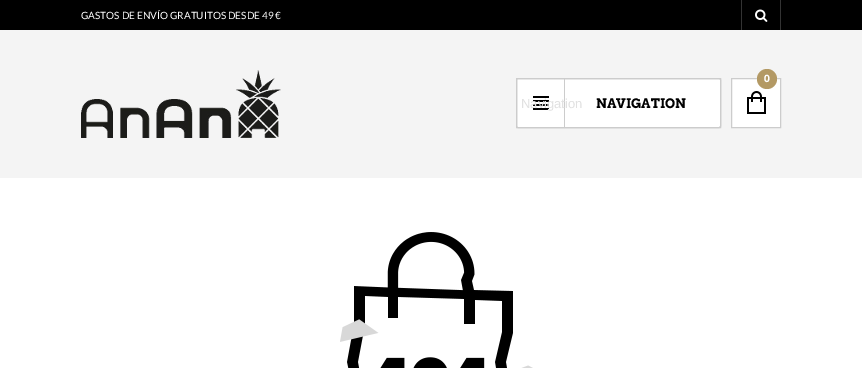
%!PS
<< /PageSize [862 368] >> setpagedevice
/f/fill load def
/s/stroke load def
/C { dup -16 bitshift 255 div exch dup -8 bitshift 255 and 255 div exch 255 and 255 div setrgbcolor } def
/F { [ exch dup neg 0 0 3 -1 roll 0 0 ] selectfont } def
/T { moveto show } def
/R { rectfill } def
/O { newpath 0 360 arc closepath } def
/Q { 5 dict begin { /r /h /w /y /x } { exch def } forall
  x r add y moveto x w add y 2 copy h add r arct x w add y h add x 1 index r arct
  x y h add x y r arct x y 2 copy exch w add exch r arct closepath end } def
/I { 5 dict begin { /h /w /y /x /name } { exch def } forall
  gsave x y translate w h scale
  w h 8 [w 0 0 h 0 0] name (r) file false 3 colorimage grestore end } def
0 368 translate 1 -1 scale
4 setmiterlimit
16#FFFFFF C
0 0 862 368 R
16#000000 C
0 0 862 30 R
/Lato-Regular 10 F
16#FFFFFF C
(GASTOS DE ENVÍO GRATUITOS DESDE 49 €) 81 19 T
16#333333 C
780 0 1 30 R
741 0 1 30 R
(1.rgb) 755 9 13 13 I
16#F4F4F4 C
0 30 862 148 R
(2.rgb) 81 70 200 68 I
16#FFFFFF C
732 79 48 48 R
(3.rgb) 747 91 19 23 I
16#CCCCCC C
731.5 78.5 49 49 rectstroke
16#B39964 C
767 79 10 O f
/Lato-Black 10 F
16#FFFFFF C
(0) 764 82 T
517 79 203 48 R
(4.rgb) 533 79 32 48 I
16#CCCCCC C
516.5 78.5 204 49 rectstroke
516.5 78.5 204 49 1.5 Q s
/LiberationSans-Regular 13 F
16#E1E1E1 C
(Navigation) 521 108 T
/Arvo-Bold 13 F
16#000000 C
(NAVIGATION) 596 108 T
(5.rgb) 340 232 193 136 I
showpage
